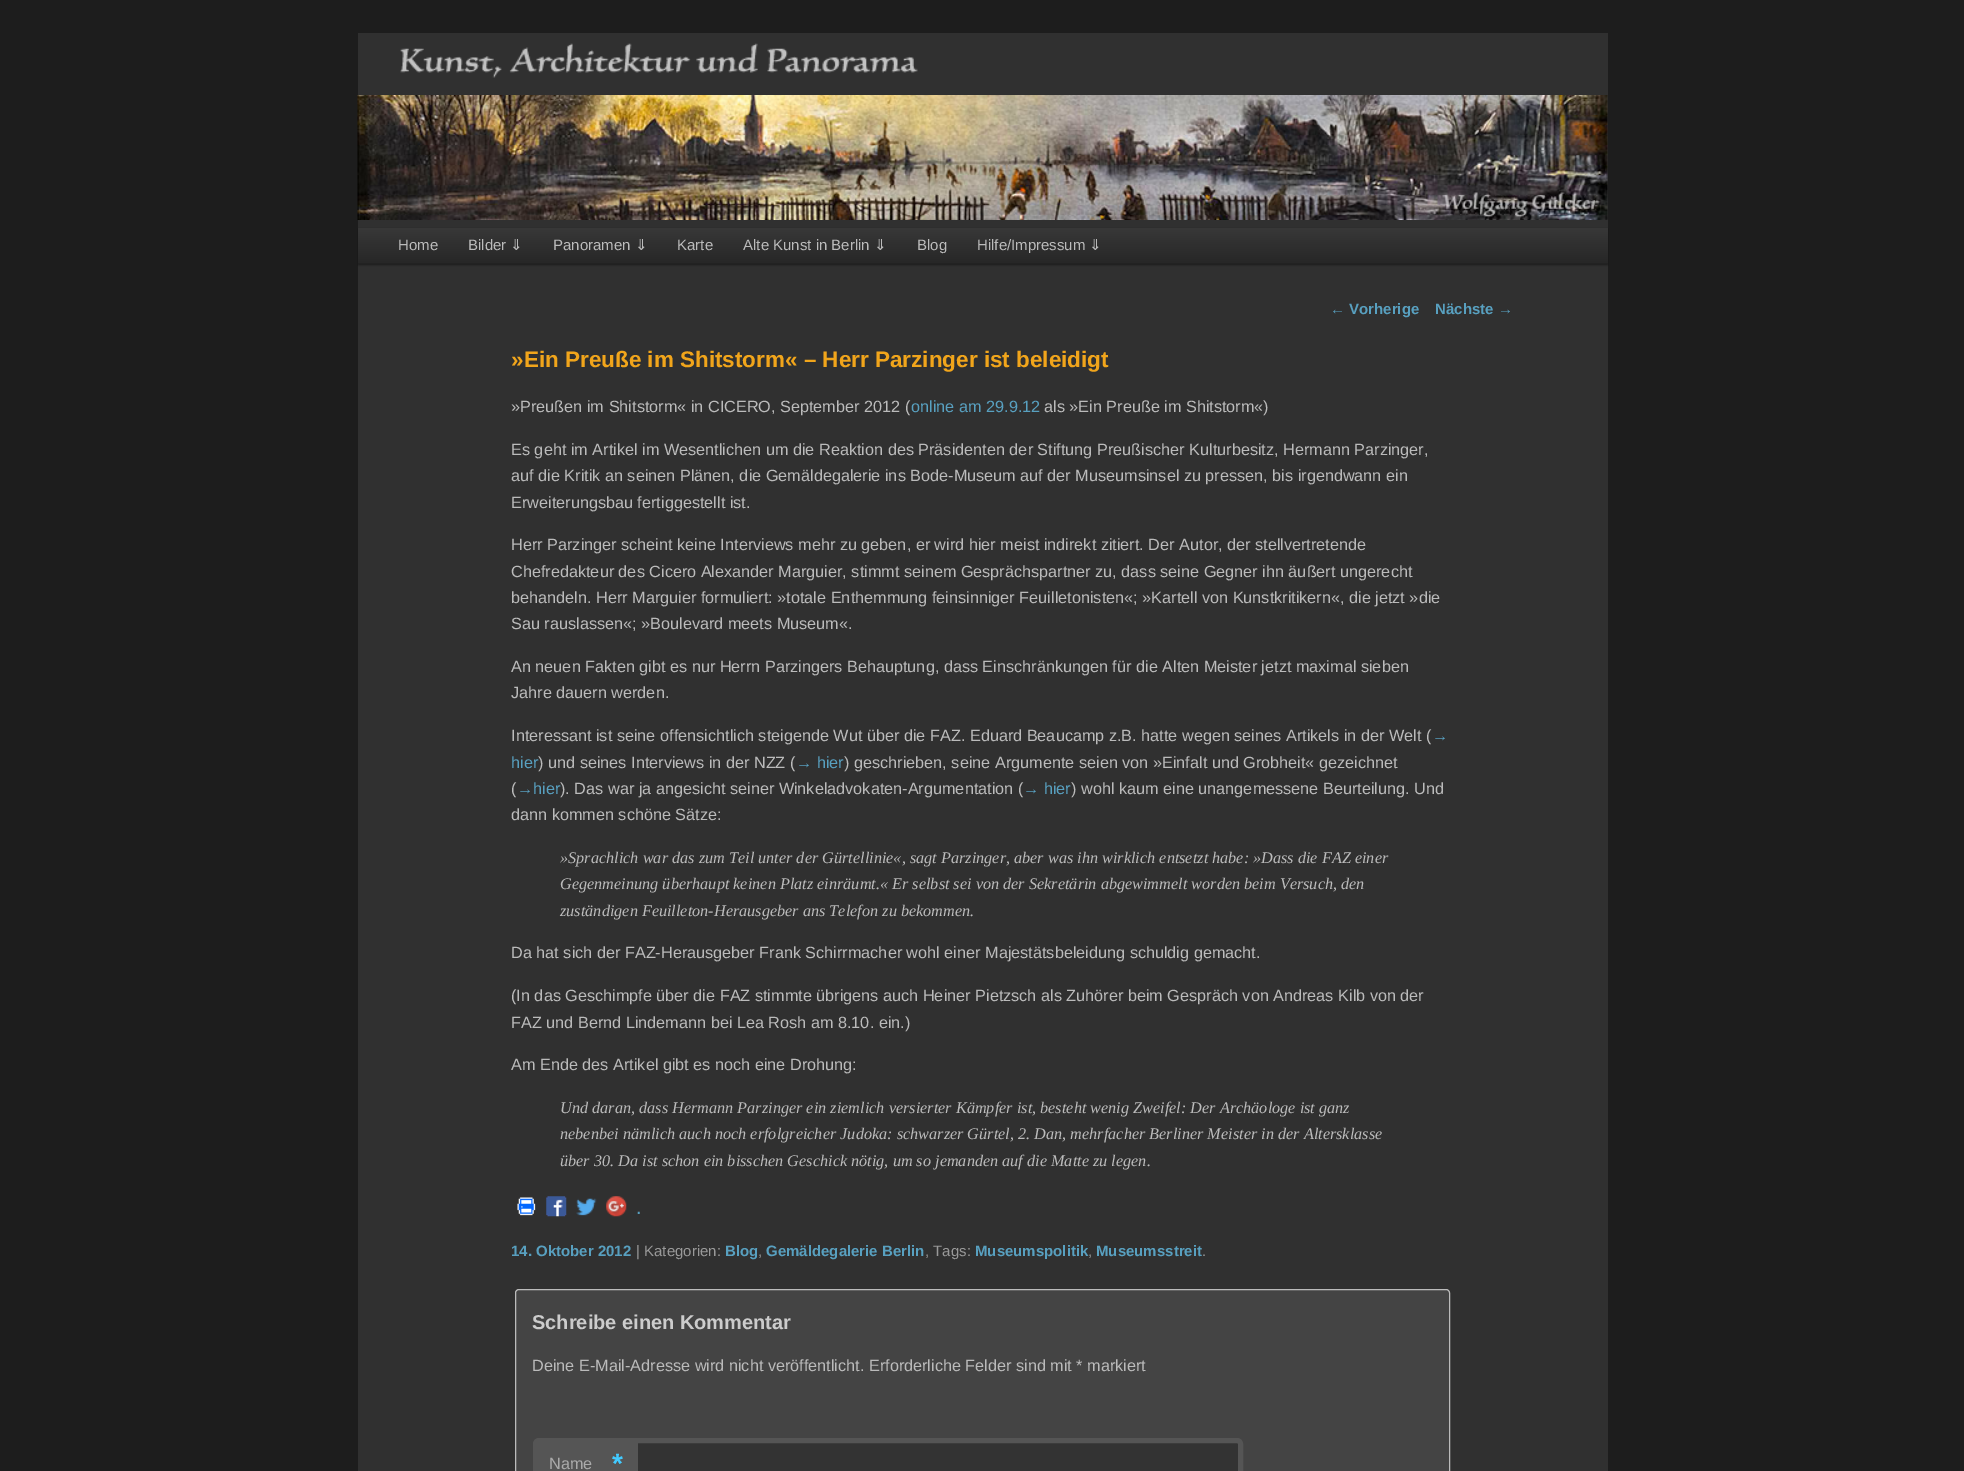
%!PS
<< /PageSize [1964 1471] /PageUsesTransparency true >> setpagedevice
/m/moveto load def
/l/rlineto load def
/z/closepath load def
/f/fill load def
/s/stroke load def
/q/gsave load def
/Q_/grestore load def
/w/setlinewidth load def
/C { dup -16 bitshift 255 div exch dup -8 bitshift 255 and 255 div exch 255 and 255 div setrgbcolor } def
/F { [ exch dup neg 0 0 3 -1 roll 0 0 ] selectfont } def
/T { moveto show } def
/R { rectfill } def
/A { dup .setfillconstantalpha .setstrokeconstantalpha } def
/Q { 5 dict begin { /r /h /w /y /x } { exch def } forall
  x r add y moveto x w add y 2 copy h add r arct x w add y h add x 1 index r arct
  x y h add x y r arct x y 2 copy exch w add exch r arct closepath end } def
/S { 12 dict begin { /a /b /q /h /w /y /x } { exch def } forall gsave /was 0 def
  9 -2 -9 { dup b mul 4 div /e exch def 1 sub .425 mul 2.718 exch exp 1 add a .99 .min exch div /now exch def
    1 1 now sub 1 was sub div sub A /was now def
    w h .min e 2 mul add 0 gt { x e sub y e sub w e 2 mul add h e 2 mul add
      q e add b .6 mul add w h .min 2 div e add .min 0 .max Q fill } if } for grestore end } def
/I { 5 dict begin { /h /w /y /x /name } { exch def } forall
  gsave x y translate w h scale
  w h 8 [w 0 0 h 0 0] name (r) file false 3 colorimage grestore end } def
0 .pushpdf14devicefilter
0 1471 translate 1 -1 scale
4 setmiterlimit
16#1D1D1D C
0 0 1964 1471 R
16#303030 C
358 33 1250 1438 R
(1.rgb) 400 43 518 35 I
(2.rgb) 357 95 1251 125 I
16#000000 C
358 229 1250 36 0 1 .4 S
q 358 228 m 1250 0 l 0 35 l -1250 0 l z clip newpath
<< /ShadingType 2 /ColorSpace /DeviceRGB /Coords [983 227 983 263] /Extend [true true] /Function << /FunctionType 2 /Domain [0 1] /C0 [.22 .22 .22] /C1 [.153 .153 .153] /N 1 >> >> shfill Q_
16#222222 C
358 263 1250 1 R
/LiberationSans-Regular 15 F
16#BBBBBB C
(Home) 398 250 T
(Bilder) 468 250 T
/DejaVuSans-Regular 15 F
(⇓) 510 250 T
/LiberationSans-Regular 15 F
(Panoramen) 553 250 T
/DejaVuSans-Regular 15 F
(⇓) 635 250 T
/LiberationSans-Regular 15 F
(Karte) 677 250 T
(Alte Kunst in Berlin) 743 250 T
/DejaVuSans-Regular 15 F
(⇓) 874 250 T
/LiberationSans-Regular 15 F
(Blog) 917 250 T
(Hilfe/Impressum) 977 250 T
/DejaVuSans-Regular 15 F
(⇓) 1089 250 T
/LiberationSans-Regular 15 F
16#58A0C0 C
(←) 1330 314 T
/LiberationSans-Bold 15 F
(Vorherige) 1349 314 T
(Nächste) 1435 314 T
/LiberationSans-Regular 15 F
(→) 1498 314 T
/LiberationSans-Bold 22.5 F
16#F1A51B C
(»Ein Preuße im Shitstorm« – Herr Parzinger ist beleidigt) 511 367 T
/LiberationSans-Regular 16.25 F
16#BBBBBB C
(»Preußen im Shitstorm« in CICERO, September 2012 \() 511 412 T
16#58A0C0 C
(online am 29.9.12) 911 412 T
16#BBBBBB C
(als »Ein Preuße im Shitstorm«\)) 1044 412 T
(Es geht im Artikel im Wesentlichen um die Reaktion des Präsidenten der Stiftung Preußischer Kulturbesitz, Hermann Parzinger,) 511 455 T
(auf die Kritik an seinen Plänen, die Gemäldegalerie ins Bode-Museum auf der Museumsinsel zu pressen, bis irgendwann ein) 511 481 T
(Erweiterungsbau fertiggestellt ist.) 511 508 T
(Herr Parzinger scheint keine Interviews mehr zu geben, er wird hier meist indirekt zitiert. Der Autor, der stellvertretende) 511 550 T
(Chefredakteur des Cicero Alexander Marguier, stimmt seinem Gesprächspartner zu, dass seine Gegner ihn äußert ungerecht) 511 577 T
(behandeln. Herr Marguier formuliert: »totale Enthemmung feinsinniger Feuilletonisten«; »Kartell von Kunstkritikern«, die jetzt »die) 511 603 T
(Sau rauslassen«; »Boulevard meets Museum«.) 511 629 T
(An neuen Fakten gibt es nur Herrn Parzingers Behauptung, dass Einschränkungen für die Alten Meister jetzt maximal sieben) 511 672 T
(Jahre dauern werden.) 511 698 T
(Interessant ist seine offensichtlich steigende Wut über die FAZ. Eduard Beaucamp z.B. hatte wegen seines Artikels in der Welt \() 511 741 T
16#58A0C0 C
(→) 1432 741 T
(hier) 511 768 T
16#BBBBBB C
(\) und seines Interviews in der NZZ \() 538 768 T
16#58A0C0 C
(→ hier) 796 768 T
16#BBBBBB C
(\) geschrieben, seine Argumente seien von »Einfalt und Grobheit« gezeichnet) 844 768 T
(\() 511 794 T
16#58A0C0 C
(→hier) 517 794 T
16#BBBBBB C
(\). Das war ja angesicht seiner Winkeladvokaten-Argumentation \() 560 794 T
16#58A0C0 C
(→ hier) 1023 794 T
16#BBBBBB C
(\) wohl kaum eine unangemessene Beurteilung. Und) 1071 794 T
(dann kommen schöne Sätze:) 511 820 T
/LiberationSerif-Italic 16.25 F
(»Sprachlich war das zum Teil unter der Gürtellinie«, sagt Parzinger, aber was ihn wirklich entsetzt habe: »Dass die FAZ einer) 560 863 T
(Gegenmeinung überhaupt keinen Platz einräumt.« Er selbst sei von der Sekretärin abgewimmelt worden beim Versuch, den) 560 889 T
(zuständigen Feuilleton-Herausgeber ans Telefon zu bekommen.) 560 916 T
/LiberationSans-Regular 16.25 F
(Da hat sich der FAZ-Herausgeber Frank Schirrmacher wohl einer Majestätsbeleidung schuldig gemacht.) 511 958 T
(\(In das Geschimpfe über die FAZ stimmte übrigens auch Heiner Pietzsch als Zuhörer beim Gespräch von Andreas Kilb von der) 511 1001 T
(FAZ und Bernd Lindemann bei Lea Rosh am 8.10. ein.\)) 511 1028 T
(Am Ende des Artikel gibt es noch eine Drohung:) 511 1070 T
/LiberationSerif-Italic 16.25 F
(Und daran, dass Hermann Parzinger ein ziemlich versierter Kämpfer ist, besteht wenig Zweifel: Der Archäologe ist ganz) 560 1113 T
(nebenbei nämlich auch noch erfolgreicher Judoka: schwarzer Gürtel, 2. Dan, mehrfacher Berliner Meister in der Altersklasse) 560 1139 T
(über 30. Da ist schon ein bisschen Geschick nötig, um so jemanden auf die Matte zu legen.) 560 1166 T
(3.rgb) 517 1197 19 19 I
(4.rgb) 546 1196 21 21 I
(5.rgb) 576 1198 21 18 I
(6.rgb) 606 1196 21 21 I
/LiberationSans-Regular 20 F
16#58A0C0 C
(.) 636 1214 T
/LiberationSans-Bold 15 F
(14. Oktober 2012) 511 1256 T
/LiberationSans-Regular 15 F
16#999999 C
(| Kategorien:) 636 1256 T
/LiberationSans-Bold 15 F
16#58A0C0 C
(Blog) 725 1256 T
/LiberationSans-Regular 15 F
16#999999 C
(,) 758 1256 T
/LiberationSans-Bold 15 F
16#58A0C0 C
(Gemäldegalerie Berlin) 766 1256 T
/LiberationSans-Regular 15 F
16#999999 C
(, Tags:) 925 1256 T
/LiberationSans-Bold 15 F
16#58A0C0 C
(Museumspolitik) 975 1256 T
/LiberationSans-Regular 15 F
16#999999 C
(,) 1088 1256 T
/LiberationSans-Bold 15 F
16#58A0C0 C
(Museumsstreit) 1096 1256 T
/LiberationSans-Regular 15 F
16#999999 C
(.) 1202 1256 T
16#444444 C
515.5 1289.5 934 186 3.5 Q q f Q_
16#BBBBBB C
s
/LiberationSans-Bold 20 F
16#CCCCCC C
(Schreibe einen Kommentar) 532 1329 T
/LiberationSans-Regular 16.25 F
16#BBBBBB C
(Deine E-Mail-Adresse wird nicht veröffentlicht. Erforderliche Felder sind mit * markiert) 532 1371 T
16#333333 C
535.5 1440.5 705 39 3.5 Q q f Q_
16#555555 C
5 w
s
538 1443 100 28 R
16#AAAAAA C
(Name) 549 1469 T
/LiberationSans-Bold 28 F
16#42CAFF C
(*) 612 1473 T
.poppdf14devicefilter showpage
